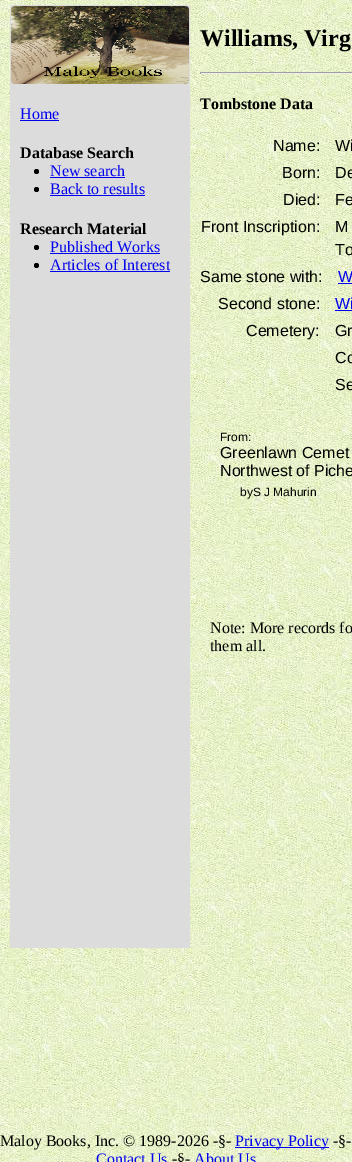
%!PS
<< /PageSize [352 1162] >> setpagedevice
/f/fill load def
/C { dup -16 bitshift 255 div exch dup -8 bitshift 255 and 255 div exch 255 and 255 div setrgbcolor } def
/F { [ exch dup neg 0 0 3 -1 roll 0 0 ] selectfont } def
/T { moveto show } def
/R { rectfill } def
/O { newpath 0 360 arc closepath } def
/I { 5 dict begin { /h /w /y /x /name } { exch def } forall
  gsave x y translate w h scale
  w h 8 [w 0 0 h 0 0] name (r) file false 3 colorimage grestore end } def
0 1162 translate 1 -1 scale
4 setmiterlimit
16#FFFFFF C
0 0 352 1162 R
(1.rgb) 0 0 352 1162 I
16#DCDCDC C
10 5 180 943 R
(2.rgb) 11 6 178 78 I
/LiberationSerif-Regular 16 F
16#0000EE C
(Home) 20 119 T
20 120 39 1 R
/LiberationSerif-Bold 16 F
16#000000 C
(Database Search) 20 158 T
36.5 171.5 2.5 O f
/LiberationSerif-Regular 16 F
16#0000EE C
(New search) 50 176 T
50 177 75 1 R
16#000000 C
36.5 189.5 2.5 O f
16#0000EE C
(Back to results) 50 194 T
50 195 95 1 R
/LiberationSerif-Bold 16 F
16#000000 C
(Research Material) 20 234 T
36.5 247.5 2.5 O f
/LiberationSerif-Regular 16 F
16#0000EE C
(Published Works) 50 252 T
50 253 110 1 R
16#000000 C
36.5 265.5 2.5 O f
16#0000EE C
(Articles of Interest) 50 270 T
50 271 120 1 R
/LiberationSerif-Bold 24 F
16#000000 C
(Williams, Virg) 200 46 T
16#9F9F9F C
200 72 152 1 R
16#EEEEEE C
200 73 152 1 R
16#9F9F9F C
200 72 1 2 R
/LiberationSerif-Bold 16 F
16#000000 C
(Tombstone Data) 200 109 T
/LiberationSans-Regular 16 F
(Name:) 273 151 T
(Wi) 335 151 T
(Born:) 282 178 T
(De) 335 178 T
(Died:) 283 205 T
(Fe) 335 205 T
(Front Inscription:) 201 232 T
(M) 335 232 T
(To) 335 255 T
(Same stone with:) 200 282 T
16#0000EE C
(W) 338 282 T
338 283 14 1 R
16#000000 C
(Second stone:) 218 309 T
16#0000EE C
(Wi) 335 309 T
335 310 17 1 R
16#000000 C
(Cemetery:) 246 336 T
(Gr) 335 336 T
(Co) 335 363 T
(Se) 335 390 T
/LiberationSans-Regular 12 F
(From:) 220 441 T
/LiberationSans-Regular 16 F
(Greenlawn Cemet) 220 458 T
(Northwest of Piche) 220 476 T
/LiberationSans-Regular 12 F
(byS J Mahurin) 240 496 T
/LiberationSerif-Regular 16 F
(Note: More records fo) 210 633 T
(them all.) 210 651 T
(Maloy Books, Inc. © 1989-2026 -§-) 0 1146 T
16#0000EE C
235 1147 94 1 R
(Privacy Policy) 235 1146 T
16#000000 C
(-§-) 333 1146 T
16#0000EE C
(Contact Us) 96 1164 T
16#000000 C
(-§-) 172 1164 T
16#0000EE C
(About Us) 194 1164 T
showpage
